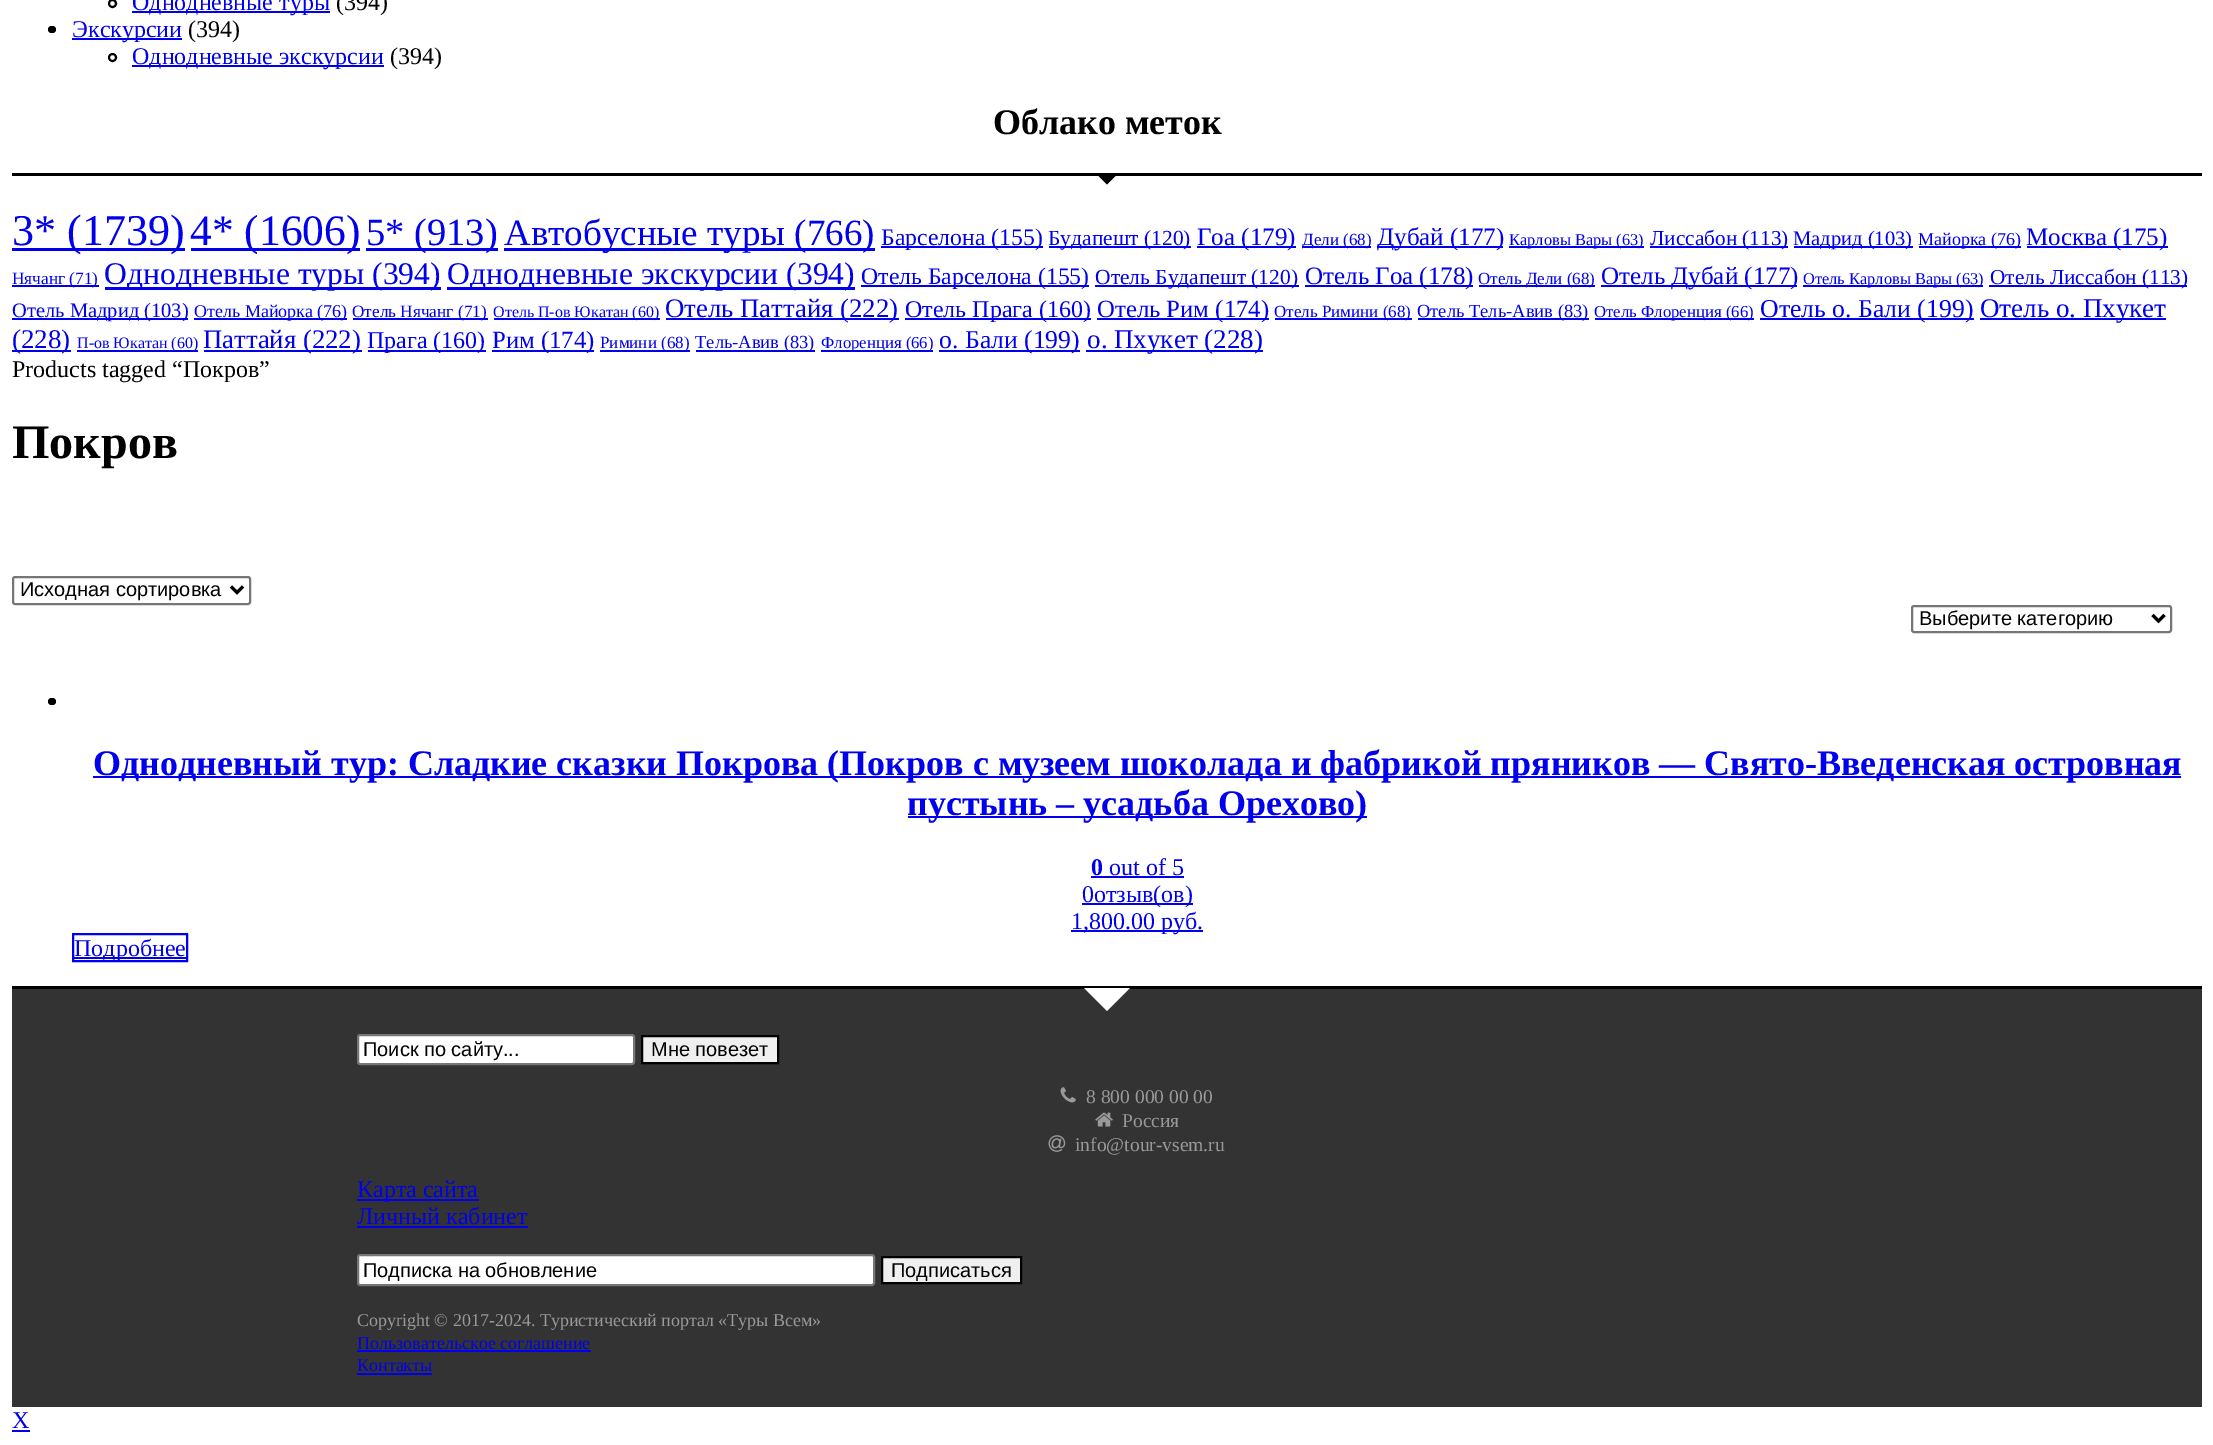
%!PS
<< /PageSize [2213 1445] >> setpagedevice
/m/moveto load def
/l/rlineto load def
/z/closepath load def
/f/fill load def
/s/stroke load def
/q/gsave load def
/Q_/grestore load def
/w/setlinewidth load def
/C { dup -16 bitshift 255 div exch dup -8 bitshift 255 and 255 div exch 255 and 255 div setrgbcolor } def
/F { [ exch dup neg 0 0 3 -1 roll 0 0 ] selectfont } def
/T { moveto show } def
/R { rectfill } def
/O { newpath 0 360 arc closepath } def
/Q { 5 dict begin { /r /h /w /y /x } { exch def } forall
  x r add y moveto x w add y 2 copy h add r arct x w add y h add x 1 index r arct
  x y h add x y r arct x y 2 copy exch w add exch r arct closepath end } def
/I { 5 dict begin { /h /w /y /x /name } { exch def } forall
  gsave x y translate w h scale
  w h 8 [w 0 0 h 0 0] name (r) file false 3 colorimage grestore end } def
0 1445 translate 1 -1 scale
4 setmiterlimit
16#FFFFFF C
0 0 2213 1445 R
16#000000 C
2 w
112.5 3.5 3.5 O s
16#0000EE C
132 11 198 2 R
/LiberationSerif-Regular 24 F
(Однодневные туры) 132 10 T
16#000000 C
(\(394\)) 336 10 T
48 26 8 7 3.5 Q f
16#0000EE C
72 38 110 2 R
(Экскурсии) 72 37 T
16#000000 C
(\(394\)) 188 37 T
112.5 57.5 3.5 O s
16#0000EE C
132 65 252 2 R
(Однодневные экскурсии) 132 64 T
16#000000 C
(\(394\)) 390 64 T
12 173 2190 3 R
/LiberationSerif-Bold 36 F
(Облако меток) 993 134 T
1096.5 174 m 21 0 l -10.5 10.5 l z f
16#0000EE C
12 248 173 3 R
/LiberationSerif-Regular 44 F
(3* \(1739\)) 12 245 T
191 248 169 3 R
/LiberationSerif-Regular 43.5 F
(4* \(1606\)) 190 245 T
366 248 132 3 R
/LiberationSerif-Regular 38.5 F
(5* \(913\)) 366 245 T
504 248 371 3 R
/LiberationSerif-Regular 37 F
(Автобусные туры \(766\)) 504 245 T
881 246 103 2 R
/LiberationSerif-Regular 23.75 F
(Барселона) 881 245 T
984 246 59 2 R
(\(155\)) 991 245 T
1049 246 142 2 R
/LiberationSerif-Regular 21.5 F
(Будапешт \(120\)) 1048 245 T
1197 246 99 2 R
/LiberationSerif-Regular 25 F
(Гоа \(179\)) 1197 245 T
1302 246 69 2 R
/LiberationSerif-Regular 17 F
(Дели \(68\)) 1302 245 T
1377 246 126 2 R
/LiberationSerif-Regular 25 F
(Дубай \(177\)) 1377 245 T
1509 246 135 2 R
/LiberationSerif-Regular 16.4 F
(Карловы Вары \(63\)) 1509 245 T
1650 246 138 2 R
/LiberationSerif-Regular 21.25 F
(Лиссабон \(113\)) 1650 245 T
1794 246 119 2 R
/LiberationSerif-Regular 20.5 F
(Мадрид \(103\)) 1793 245 T
1919 246 102 2 R
/LiberationSerif-Regular 18 F
(Майорка \(76\)) 1918 245 T
2027 246 141 2 R
/LiberationSerif-Regular 25 F
(Москва \(175\)) 2026 245 T
12 285 87 2 R
/LiberationSerif-Regular 17.25 F
(Нячанг \(71\)) 12 284 T
105 287 336 3 R
/LiberationSerif-Regular 31.6 F
(Однодневные туры \(394\)) 104 284 T
447 287 408 3 R
(Однодневные экскурсии \(394\)) 447 284 T
861 285 228 2 R
/LiberationSerif-Regular 23.75 F
(Отель Барселона \(155\)) 861 284 T
1095 285 204 2 R
/LiberationSerif-Regular 21.5 F
(Отель Будапешт \(120\)) 1095 284 T
1305 285 168 2 R
/LiberationSerif-Regular 25 F
(Отель Гоа \(178\)) 1305 284 T
1479 285 116 2 R
/LiberationSerif-Regular 17 F
(Отель Дели \(68\)) 1478 284 T
1601 285 196 2 R
/LiberationSerif-Regular 25 F
(Отель Дубай \(177\)) 1601 284 T
1803 285 180 2 R
/LiberationSerif-Regular 16.4 F
(Отель Карловы Вары \(63\)) 1803 284 T
1989 285 198 2 R
/LiberationSerif-Regular 21.25 F
(Отель Лиссабон \(113\)) 1990 284 T
12 318 126 2 R
/LiberationSerif-Regular 20.5 F
(Отель Мадрид) 12 317 T
138 318 50 2 R
(\(103\)) 144 317 T
194 318 153 2 R
/LiberationSerif-Regular 18 F
(Отель Майорка \(76\)) 194 317 T
353 318 135 2 R
/LiberationSerif-Regular 17.25 F
(Отель Нячанг \(71\)) 352 317 T
494 318 166 2 R
/LiberationSerif-Regular 16 F
(Отель П-ов Юкатан \(60\)) 493 317 T
666 318 233 2 R
/LiberationSerif-Regular 26.75 F
(Отель Паттайя \(222\)) 665 317 T
905 318 186 2 R
/LiberationSerif-Regular 24 F
(Отель Прага \(160\)) 905 317 T
1097 318 172 2 R
/LiberationSerif-Regular 24.75 F
(Отель Рим \(174\)) 1097 317 T
1275 318 137 2 R
/LiberationSerif-Regular 17 F
(Отель Римини \(68\)) 1274 317 T
1418 318 171 2 R
/LiberationSerif-Regular 18.5 F
(Отель Тель-Авив \(83\)) 1417 317 T
1595 318 159 2 R
/LiberationSerif-Regular 16.75 F
(Отель Флоренция \(66\)) 1594 317 T
1760 318 214 2 R
/LiberationSerif-Regular 25.75 F
(Отель о. Бали \(199\)) 1760 317 T
1980 318 186 2 R
/LiberationSerif-Regular 27 F
(Отель о. Пхукет) 1980 317 T
12 350 59 2 R
(\(228\)) 12 348 T
77 350 121 2 R
/LiberationSerif-Regular 16 F
(П-ов Юкатан \(60\)) 77 348 T
204 350 158 2 R
/LiberationSerif-Regular 26.75 F
(Паттайя \(222\)) 203 348 T
368 350 118 2 R
/LiberationSerif-Regular 24 F
(Прага \(160\)) 367 348 T
492 350 102 2 R
/LiberationSerif-Regular 24.75 F
(Рим \(174\)) 492 348 T
600 350 90 2 R
/LiberationSerif-Regular 17 F
(Римини \(68\)) 600 348 T
696 350 119 2 R
/LiberationSerif-Regular 18.5 F
(Тель-Авив \(83\)) 695 348 T
821 350 112 2 R
/LiberationSerif-Regular 16.75 F
(Флоренция \(66\)) 821 348 T
939 350 141 2 R
/LiberationSerif-Regular 25.75 F
(о. Бали \(199\)) 939 348 T
1086 350 177 2 R
/LiberationSerif-Regular 27 F
(о. Пхукет \(228\)) 1087 348 T
/LiberationSerif-Regular 24 F
16#000000 C
(Products tagged “Покров”) 12 377 T
/LiberationSerif-Bold 48 F
(Покров) 12 458 T
16#767676 C
13 577 237 27 2 Q s
16#000000 C
3 w
231 586.5 m 6 6 l 6 -6 l s
/LiberationSans-Regular 20 F
(Исходная сортировка) 20 596 T
16#767676 C
2 w
1912 606 259 26 2 Q s
16#000000 C
3 w
2152.5 615 m 6 6 l 6 -6 l s
(Выберите категорию) 1919 625 T
48 698 8 7 3.5 Q f
16#0000EE C
93 776 2088 2 R
/LiberationSerif-Bold 36 F
(Однодневный тур: Сладкие сказки Покрова \(Покров с музеем шоколада и фабрикой пряников — Свято-Введенская островная) 93 775 T
908 816 459 2 R
(пустынь – усадьба Орехово\)) 907 815 T
/LiberationSerif-Bold 24 F
(0) 1091 875 T
1091 876 93 2 R
/LiberationSerif-Regular 24 F
(out of 5) 1109 875 T
1082 903 111 2 R
(0отзыв\(ов\)) 1082 902 T
1071 930 132 2 R
(1,800.00 руб.) 1071 929 T
2 w
73 934 114 27 rectstroke
74 957 112 2 R
(Подробнее) 74 956 T
16#333333 C
12 989 2190 418 R
16#000000 C
12 986 2190 3 R
16#FFFFFF C
1084 988 m 46 0 l -23 23 l z f
358 1035 276 29 2 Q q f Q_
16#767676 C
s
/LiberationSans-Regular 20 F
16#000000 C
(Поиск по сайту...) 363 1056 T
16#EFEFEF C
642 1036 m 136 0 l 0 27 l -136 0 l z q f Q_
16#000000 C
s
(Мне повезет) 651 1056 T
(1.rgb) 1060 1087 16 16 I
/LiberationSerif-Regular 19.5 F
16#999999 C
(8 800 000 00 00) 1086 1103 T
(2.rgb) 1095 1112 18 15 I
(Россия) 1122 1127 T
(3.rgb) 1048 1135 18 17 I
(info@tour-vsem.ru) 1075 1151 T
16#0000EE C
357 1199 122 2 R
/LiberationSerif-Regular 24 F
(Карта сайта) 357 1197 T
(Личный кабинет) 357 1224 T
357 1226 171 2 R
16#FFFFFF C
358 1255 516 30 2 Q q f Q_
16#767676 C
s
/LiberationSans-Regular 20 F
16#000000 C
(Подписка на обновление) 363 1277 T
16#EFEFEF C
882 1257 m 139 0 l 0 26 l -139 0 l z q f Q_
16#000000 C
s
(Подписаться) 891 1277 T
/LiberationSerif-Regular 18 F
16#999999 C
(Copyright © 2017-2024. Туристический портал «Туры Всем») 357 1326 T
16#0000EE C
(Пользовательское соглашение) 357 1349 T
357 1350 234 2 R
(Контакты) 357 1371 T
357 1373 75 2 R
/LiberationSerif-Regular 24 F
(X) 12 1428 T
12 1430 18 2 R
showpage
